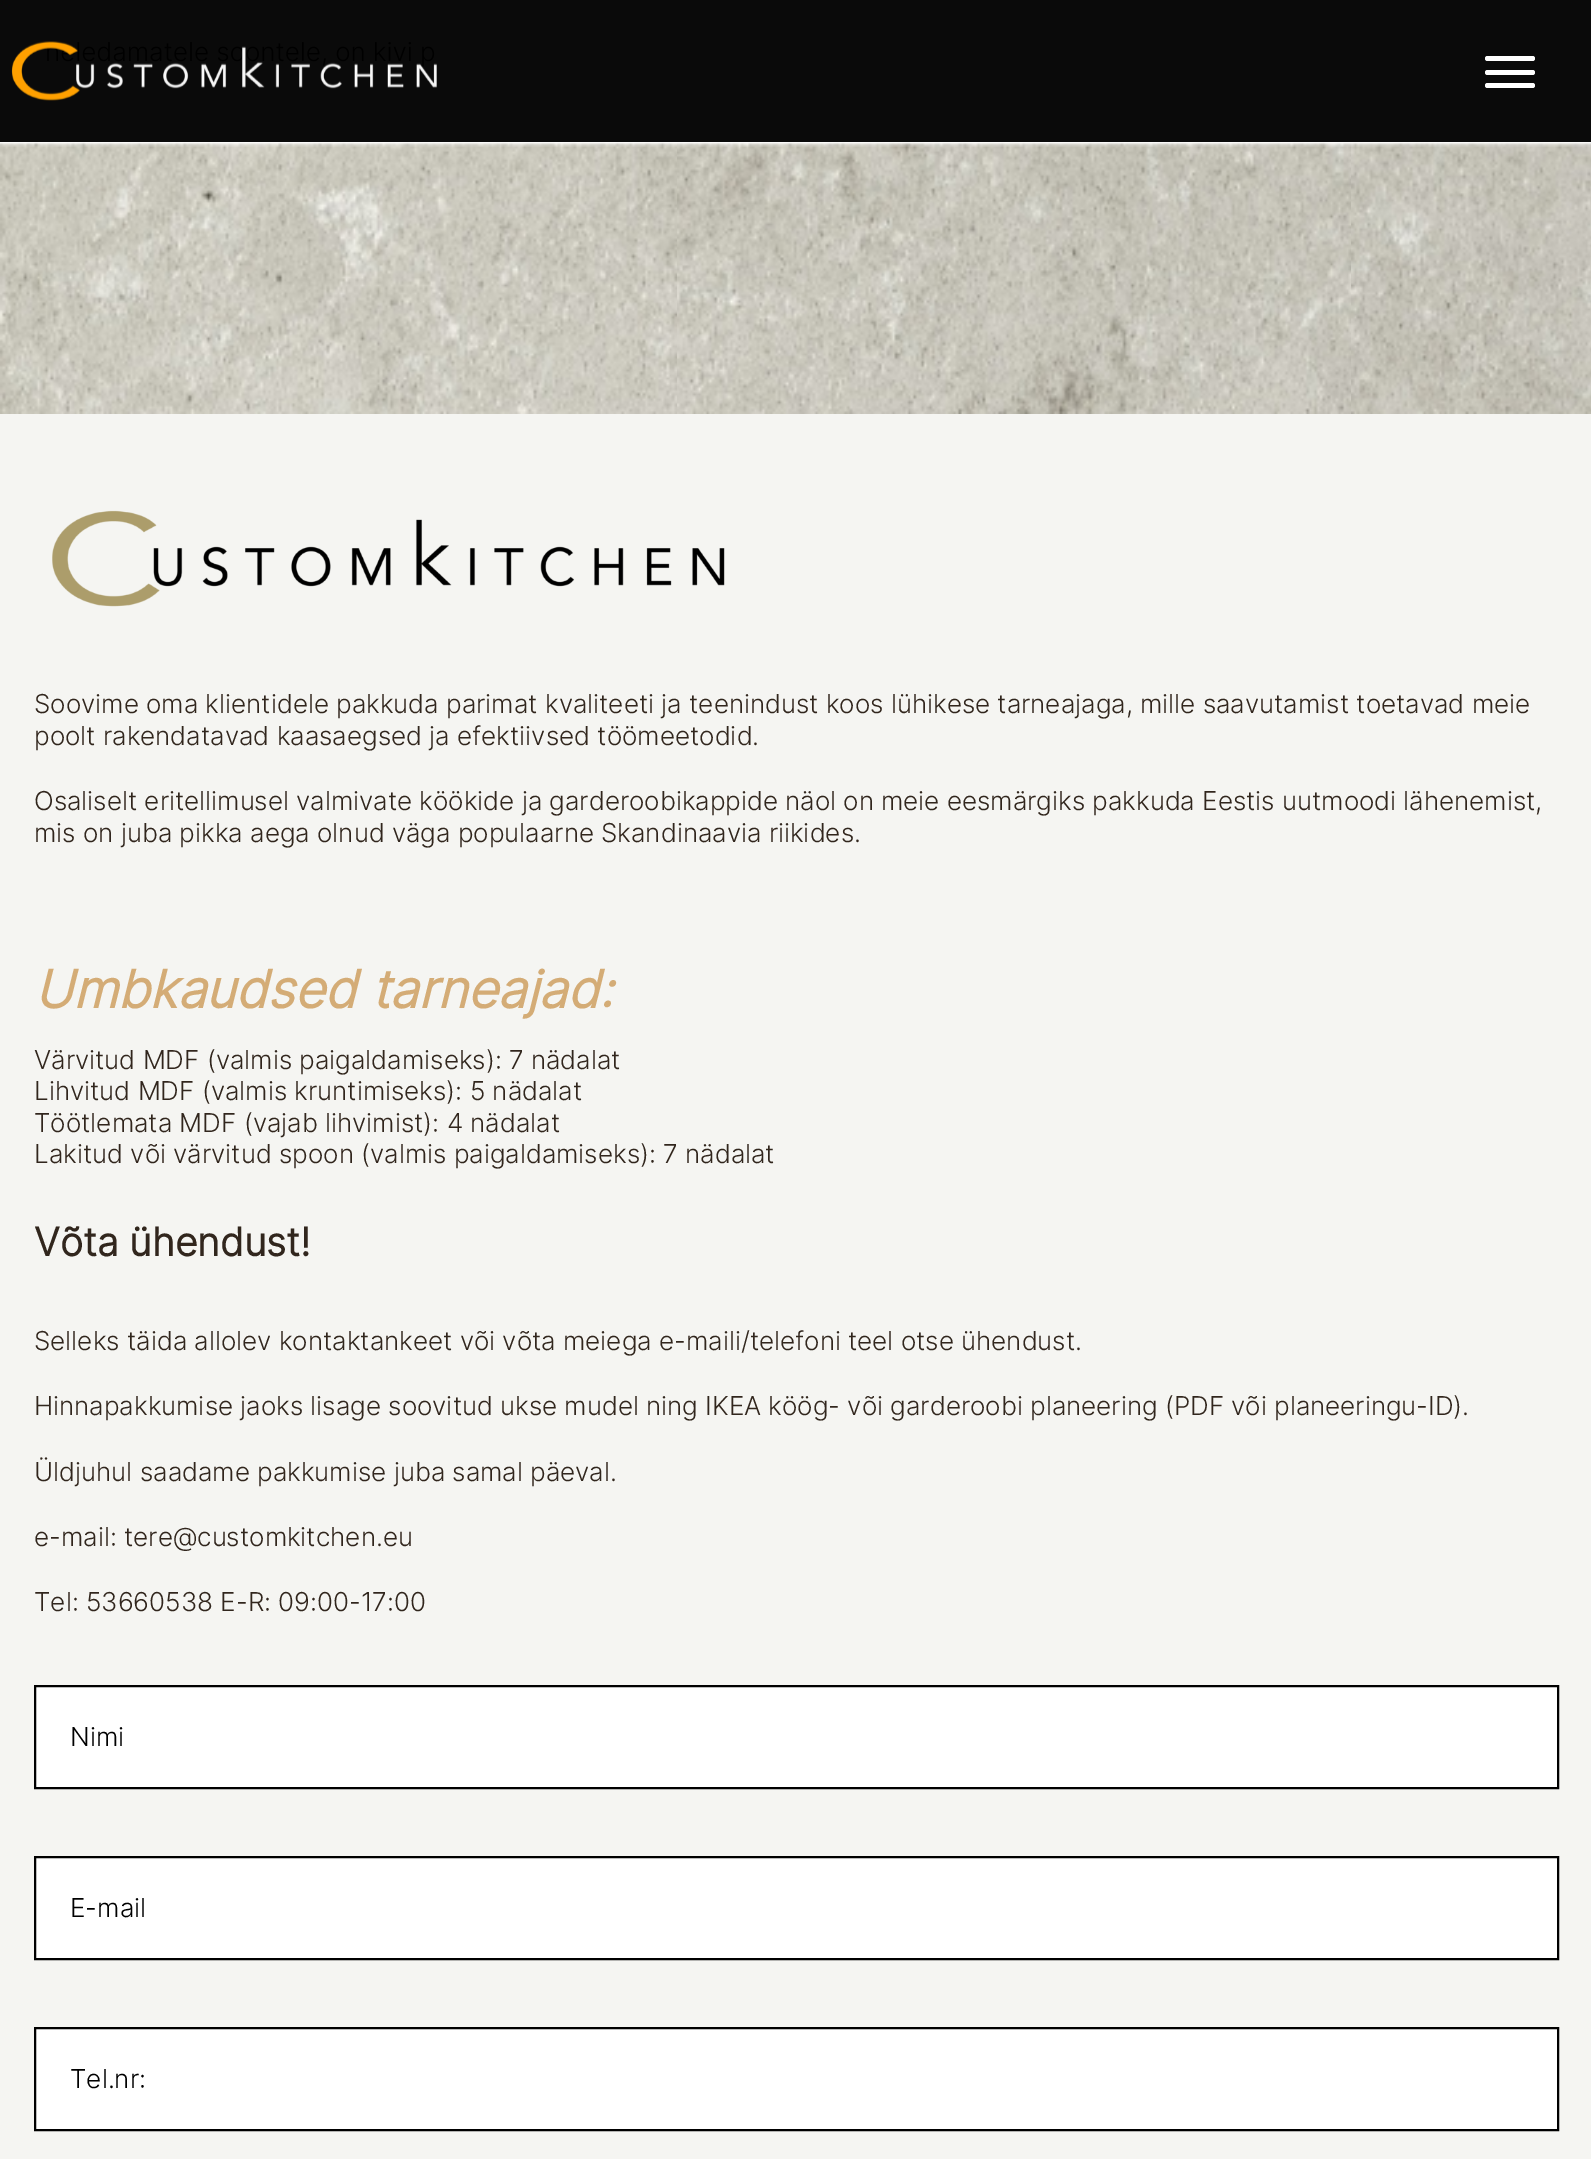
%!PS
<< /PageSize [1591 2159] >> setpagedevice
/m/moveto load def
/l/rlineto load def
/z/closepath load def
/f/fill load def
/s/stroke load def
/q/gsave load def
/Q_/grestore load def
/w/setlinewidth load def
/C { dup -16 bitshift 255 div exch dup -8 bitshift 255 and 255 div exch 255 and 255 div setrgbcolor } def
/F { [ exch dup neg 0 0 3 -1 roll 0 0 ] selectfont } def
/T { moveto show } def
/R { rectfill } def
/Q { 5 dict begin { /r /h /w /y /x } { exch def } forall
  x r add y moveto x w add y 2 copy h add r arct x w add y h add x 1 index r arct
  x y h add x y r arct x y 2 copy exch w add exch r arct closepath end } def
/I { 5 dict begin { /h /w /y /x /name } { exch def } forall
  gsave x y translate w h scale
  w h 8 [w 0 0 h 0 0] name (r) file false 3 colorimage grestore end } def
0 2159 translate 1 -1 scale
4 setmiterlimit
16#FFFFFF C
0 0 1591 2159 R
16#0A0A0A C
0 0 1591 142 R
(1.rgb) 11 41 426 60 I
16#FFFFFF C
1485 56 50 5 2.5 Q f
1485 70 50 5 2.5 Q f
1485 83 50 5 2.5 Q f
(2.rgb) 0 142 1591 272 I
16#F5F5F2 C
0 414 1591 1745 R
(3.rgb) 52 510 673 97 I
/Inter-Light 26 F
16#31261D C
(Soovime oma klientidele pakkuda parimat kvaliteeti ja teenindust koos lühikese tarneajaga, mille saavutamist toetavad meie) 34 713 T
(poolt rakendatavad kaasaegsed ja efektiivsed töömeetodid.) 34 745 T
34 810 m -.1 0 32 (Osaliselt eritellimusel valmivate köökide ja garderoobikappide näol on meie eesmärgiks pakkuda Eestis uutmoodi lähenemist,) widthshow
(mis on juba pikka aega olnud väga populaarne Skandinaavia riikides.) 34 842 T
/Inter-BoldItalic 52 F
16#D4AC76 C
(Umbkaudsed tarneajad:) 34 1008 T
/Inter-Light 26 F
16#31261D C
(Värvitud MDF \(valmis paigaldamiseks\): 7 nädalat) 34 1069 T
(Lihvitud MDF \(valmis kruntimiseks\): 5 nädalat) 34 1100 T
(Töötlemata MDF \(vajab lihvimist\): 4 nädalat) 34 1132 T
(Lakitud või värvitud spoon \(valmis paigaldamiseks\): 7 nädalat) 34 1163 T
/Inter-Bold 39 F
(Võta ühendust!) 34 1256 T
/Inter-Light 26 F
(Selleks täida allolev kontaktankeet või võta meiega e-maili/telefoni teel otse ühendust.) 34 1350 T
(Hinnapakkumise jaoks lisage soovitud ukse mudel ning IKEA köög- või garderoobi planeering \(PDF või planeeringu-ID\).) 34 1415 T
(Üldjuhul saadame pakkumise juba samal päeval.) 34 1481 T
(e-mail: tere@customkitchen.eu) 34 1546 T
(Tel: 53660538 E-R: 09:00-17:00) 34 1611 T
16#FFFFFF C
35 1686 m 1523 0 l 0 102 l -1523 0 l z q f Q_
16#000000 C
2 w
s
(Nimi) 70 1746 T
16#FFFFFF C
35 1857 m 1523 0 l 0 102 l -1523 0 l z q f Q_
16#000000 C
s
(E-mail) 70 1917 T
16#FFFFFF C
35 2028 m 1523 0 l 0 102 l -1523 0 l z q f Q_
16#000000 C
s
(Tel.nr:) 70 2088 T
showpage
